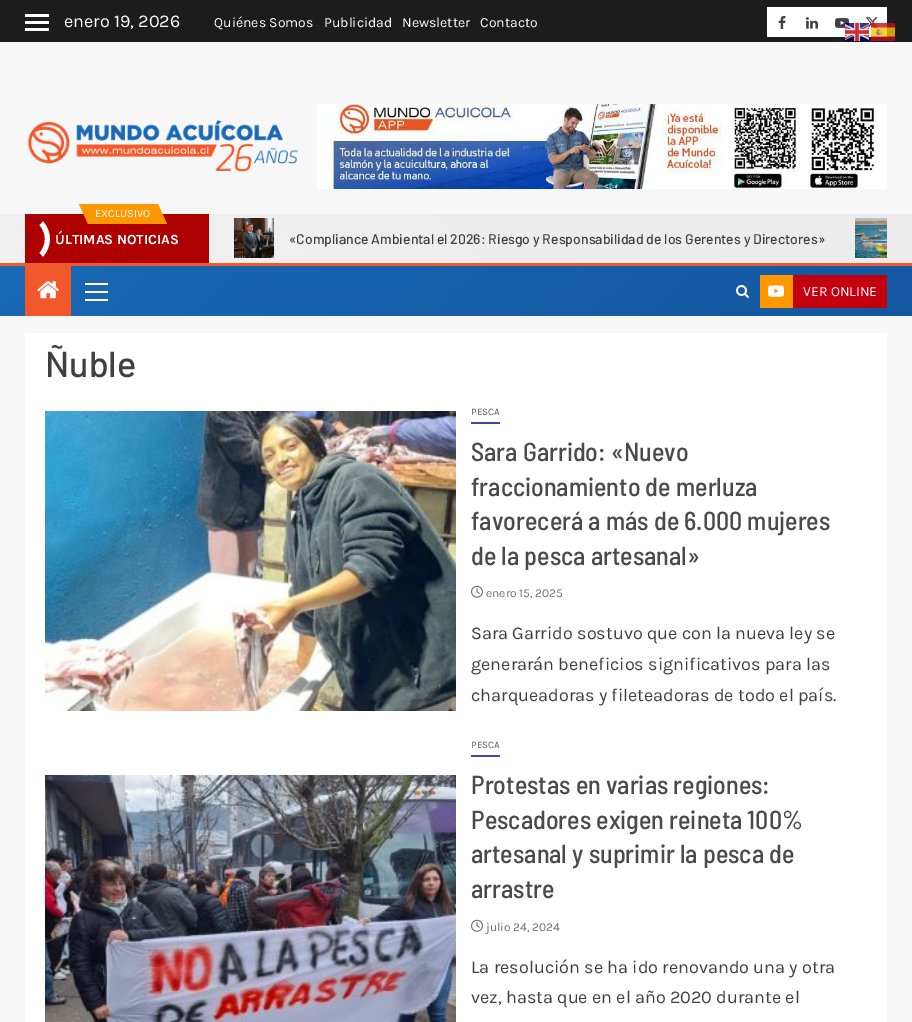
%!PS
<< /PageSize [912 1022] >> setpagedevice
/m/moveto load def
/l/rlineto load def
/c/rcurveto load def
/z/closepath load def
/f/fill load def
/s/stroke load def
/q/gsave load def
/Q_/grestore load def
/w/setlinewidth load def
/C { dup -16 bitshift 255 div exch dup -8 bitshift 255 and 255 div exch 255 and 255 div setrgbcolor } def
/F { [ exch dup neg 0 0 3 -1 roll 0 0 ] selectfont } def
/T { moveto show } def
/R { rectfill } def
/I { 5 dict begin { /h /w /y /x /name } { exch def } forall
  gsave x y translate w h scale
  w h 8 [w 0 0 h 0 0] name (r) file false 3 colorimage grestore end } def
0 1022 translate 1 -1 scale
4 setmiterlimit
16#F7F7F7 C
0 0 912 1022 R
16#1C1C1C C
0 0 912 42 R
16#FFFFFF C
25 14 24 3 R
25 21 24 3 R
25 28 24 3 R
/Karla-Regular 18 F
(enero 19, 2026) 64 27 T
/Karla-Regular 14 F
(Quiénes Somos) 214 27 T
(Publicidad) 324 27 T
(Newsletter) 402 27 T
(Contacto) 480 27 T
767 7 120 30 R
(1.rgb) 778 16 8 13 I
(2.rgb) 806 17 12 12 I
(3.rgb) 835 18 14 10 I
(4.rgb) 865 17 14 12 I
(5.rgb) 27 120 272 52 I
(6.rgb) 317 104 570 85 I
q 0 214 m 912 0 l 0 49 l -912 0 l z clip newpath
<< /ShadingType 2 /ColorSpace /DeviceRGB /Coords [216 479 696 -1.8] /Extend [true true] /Function << /FunctionType 2 /Domain [0 1] /C0 [.945 .945 .945] /C1 [.925 .925 .925] /N 1 >> >> shfill Q_
16#AF0000 C
25 214 184 49 R
16#FF9800 C
88 204 70 20 R
79 204 m 9 0 l 0 20 l z f
/Karla-Regular 11 F
16#FFFFFF C
(EXCLUSIVO) 95 217 T
16#FF9800 C
167 224 m -9 0 l 0 -20 l z f
16#FFFFFF C
5 w
41 223 m 8.5 9 8.5 23 0 32 c s
q
25 214 184 49 rectclip
16#A2020F C
9 223 m 9 -8.5 23 -8.5 32 0 c 41 255 m -9 8.5 -23 8.5 -32 0 c s
Q_
16#A2020F C
25 231 m 4.5 0 8 3.5 8 8 c 0 4.5 -3.5 8 -8 8 c z f
/Karla-Bold 14 F
16#FFFFFF C
(ÚLTIMAS NOTICIAS) 55 244 T
(7.rgb) 234 218 40 40 I
/Barlow-Medium 14 F
16#404040 C
(«Compliance Ambiental el 2026: Riesgo y Responsabilidad de los Gerentes y Directores») 289 244 T
(8.rgb) 855 218 32 40 I
q 0 266 m 912 0 l 0 50 l -912 0 l z clip newpath
<< /ShadingType 2 /ColorSpace /DeviceRGB /Coords [255 52 657 530] /Extend [true true] /Function << /FunctionType 2 /Domain [0 1] /C0 [.098 .412 .706] /C1 [.075 .341 .627] /N 1 >> >> shfill Q_
16#F1592A C
0 263 912 3 R
25 266 46 50 R
(9.rgb) 37 281 22 18 I
16#FFFFFF C
85 291 23 2 R
85 283 23 2 R
85 299 23 2 R
(10.rgb) 736 285 13 13 I
16#FF9800 C
760 275 33 33 R
(11.rgb) 768 285 16 12 I
16#C30010 C
793 275 94 33 R
/Karla-Regular 14 F
16#FFFFFF C
(VER ONLINE) 803 296 T
25 333 862 689 R
/Barlow-Medium 36 F
16#404040 C
(Ñuble) 45 377 T
(12.rgb) 45 411 411 300 I
16#4048A3 C
471 422 29 2 R
/Karla-Regular 10 F
16#606060 C
(PESCA) 471 415 T
/BarlowSemiCondensed-Medium 26 F
16#4A4A4A C
(Sara Garrido: «Nuevo) 471 461 T
(fraccionamiento de merluza) 471 496 T
(favorecerá a más de 6.000 mujeres) 471 530 T
(de la pesca artesanal») 471 565 T
(13.rgb) 471 585 12 13 I
/Karla-Regular 12 F
16#707070 C
(enero 15, 2025) 486 597 T
/Karla-Regular 18 F
16#404040 C
(Sara Garrido sostuvo que con la nueva ley se) 471 639 T
(generarán beneficios significativos para las) 471 670 T
(charqueadoras y fileteadoras de todo el país.) 471 701 T
(14.rgb) 45 775 411 247 I
16#4048A3 C
471 755 29 2 R
/Karla-Regular 10 F
16#606060 C
(PESCA) 471 748 T
/BarlowSemiCondensed-Medium 26 F
16#4A4A4A C
(Protestas en varias regiones:) 471 794 T
(Pescadores exigen reineta 100%) 471 829 T
(artesanal y suprimir la pesca de) 471 863 T
(arrastre) 471 898 T
(13.rgb) 471 919 12 13 I
/Karla-Regular 12 F
16#707070 C
(julio 24, 2024) 486 931 T
/Karla-Regular 18 F
16#404040 C
(La resolución se ha ido renovando una y otra) 471 973 T
(vez, hasta que en el año 2020 durante el) 471 1003 T
(15.rgb) 845 23 24 18 I
(16.rgb) 871 23 24 18 I
showpage
